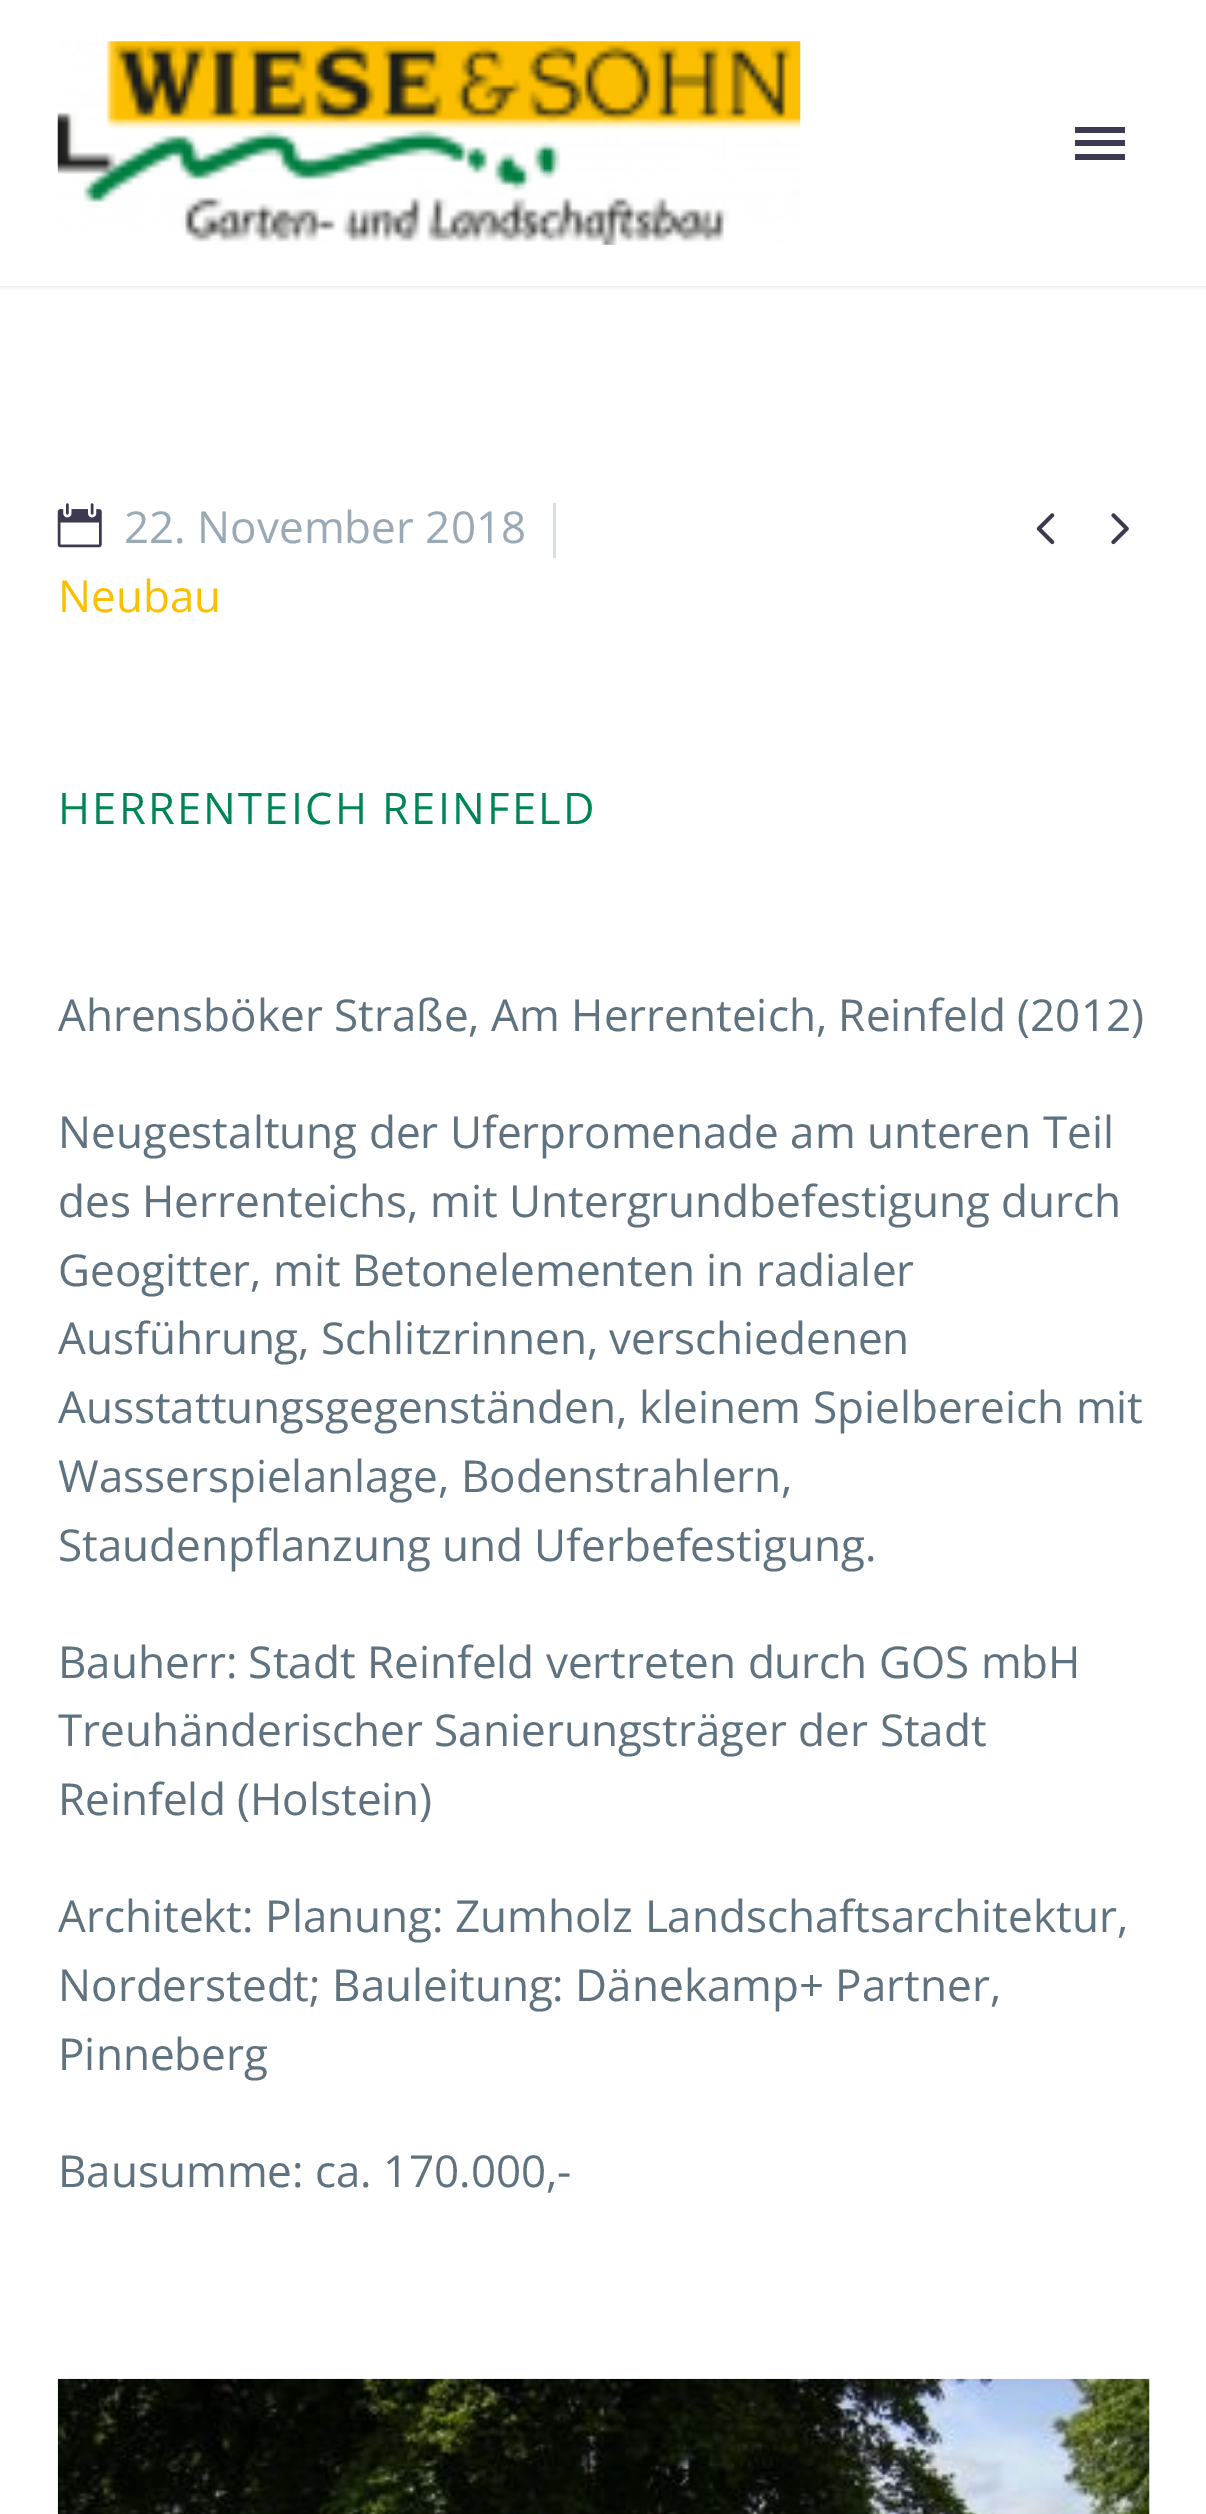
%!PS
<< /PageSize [1206 2514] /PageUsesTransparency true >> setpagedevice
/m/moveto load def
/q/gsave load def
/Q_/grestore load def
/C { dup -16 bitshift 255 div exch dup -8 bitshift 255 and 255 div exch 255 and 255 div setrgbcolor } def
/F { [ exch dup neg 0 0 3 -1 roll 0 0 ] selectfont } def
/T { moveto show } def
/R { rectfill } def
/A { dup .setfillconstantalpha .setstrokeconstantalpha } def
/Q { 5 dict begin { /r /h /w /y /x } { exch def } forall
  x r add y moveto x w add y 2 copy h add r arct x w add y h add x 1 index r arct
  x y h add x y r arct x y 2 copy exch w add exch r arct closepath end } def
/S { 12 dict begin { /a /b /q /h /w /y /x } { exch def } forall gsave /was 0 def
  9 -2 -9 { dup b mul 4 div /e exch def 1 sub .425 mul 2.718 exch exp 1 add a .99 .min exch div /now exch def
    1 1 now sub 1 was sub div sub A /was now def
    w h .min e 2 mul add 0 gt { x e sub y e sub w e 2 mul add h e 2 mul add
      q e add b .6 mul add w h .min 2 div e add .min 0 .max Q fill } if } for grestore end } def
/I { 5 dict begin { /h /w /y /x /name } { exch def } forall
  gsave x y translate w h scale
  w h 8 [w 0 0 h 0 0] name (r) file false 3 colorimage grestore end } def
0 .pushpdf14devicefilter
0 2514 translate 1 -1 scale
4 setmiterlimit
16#FFFFFF C
0 0 1206 2514 R
q
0 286 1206 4 rectclip
16#384554 C
0 0 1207 286 0 3 .2 S
Q_
(1.rgb) 57 41 744 204 I
16#3C3950 C
1075 127 50 6 R
1075 140 50 6 R
1075 154 50 6 R
(2.rgb) 57 503 45 45 I
/OpenSans-Regular 44 F
16#99A9B5 C
(22. November 2018) 124 543 T
16#D4DEE1 C
553 503 3 55 R
16#FCBF00 C
(Neubau) 58 612 T
(3.rgb) 1036 513 19 32 I
(4.rgb) 1111 513 18 32 I
/OpenSans-Regular 43.5 F
16#008654 C
58 824 m 2.2 0 (HERRENTEICH REINFELD) ashow
/OpenSans-Regular 44 F
16#5F727F C
(Ahrensböker Straße, Am Herrenteich, Reinfeld \(2012\)) 58 1031 T
(Neugestaltung der Uferpromenade am unteren Teil) 58 1148 T
(des Herrenteichs, mit Untergrundbefestigung durch) 58 1217 T
(Geogitter, mit Betonelementen in radialer) 58 1286 T
(Ausführung, Schlitzrinnen, verschiedenen) 58 1354 T
(Ausstattungsgegenständen, kleinem Spielbereich mit) 58 1423 T
(Wasserspielanlage, Bodenstrahlern,) 58 1492 T
(Staudenpflanzung und Uferbefestigung.) 58 1561 T
(Bauherr: Stadt Reinfeld vertreten durch GOS mbH) 58 1678 T
(Treuhänderischer Sanierungsträger der Stadt) 58 1746 T
(Reinfeld \(Holstein\)) 58 1815 T
(Architekt: Planung: Zumholz Landschaftsarchitektur,) 58 1932 T
(Norderstedt; Bauleitung: Dänekamp+ Partner,) 58 2001 T
(Pinneberg) 58 2070 T
(Bausumme: ca. 170.000,-) 58 2187 T
(5.rgb) 57 2378 1093 136 I
.poppdf14devicefilter showpage
